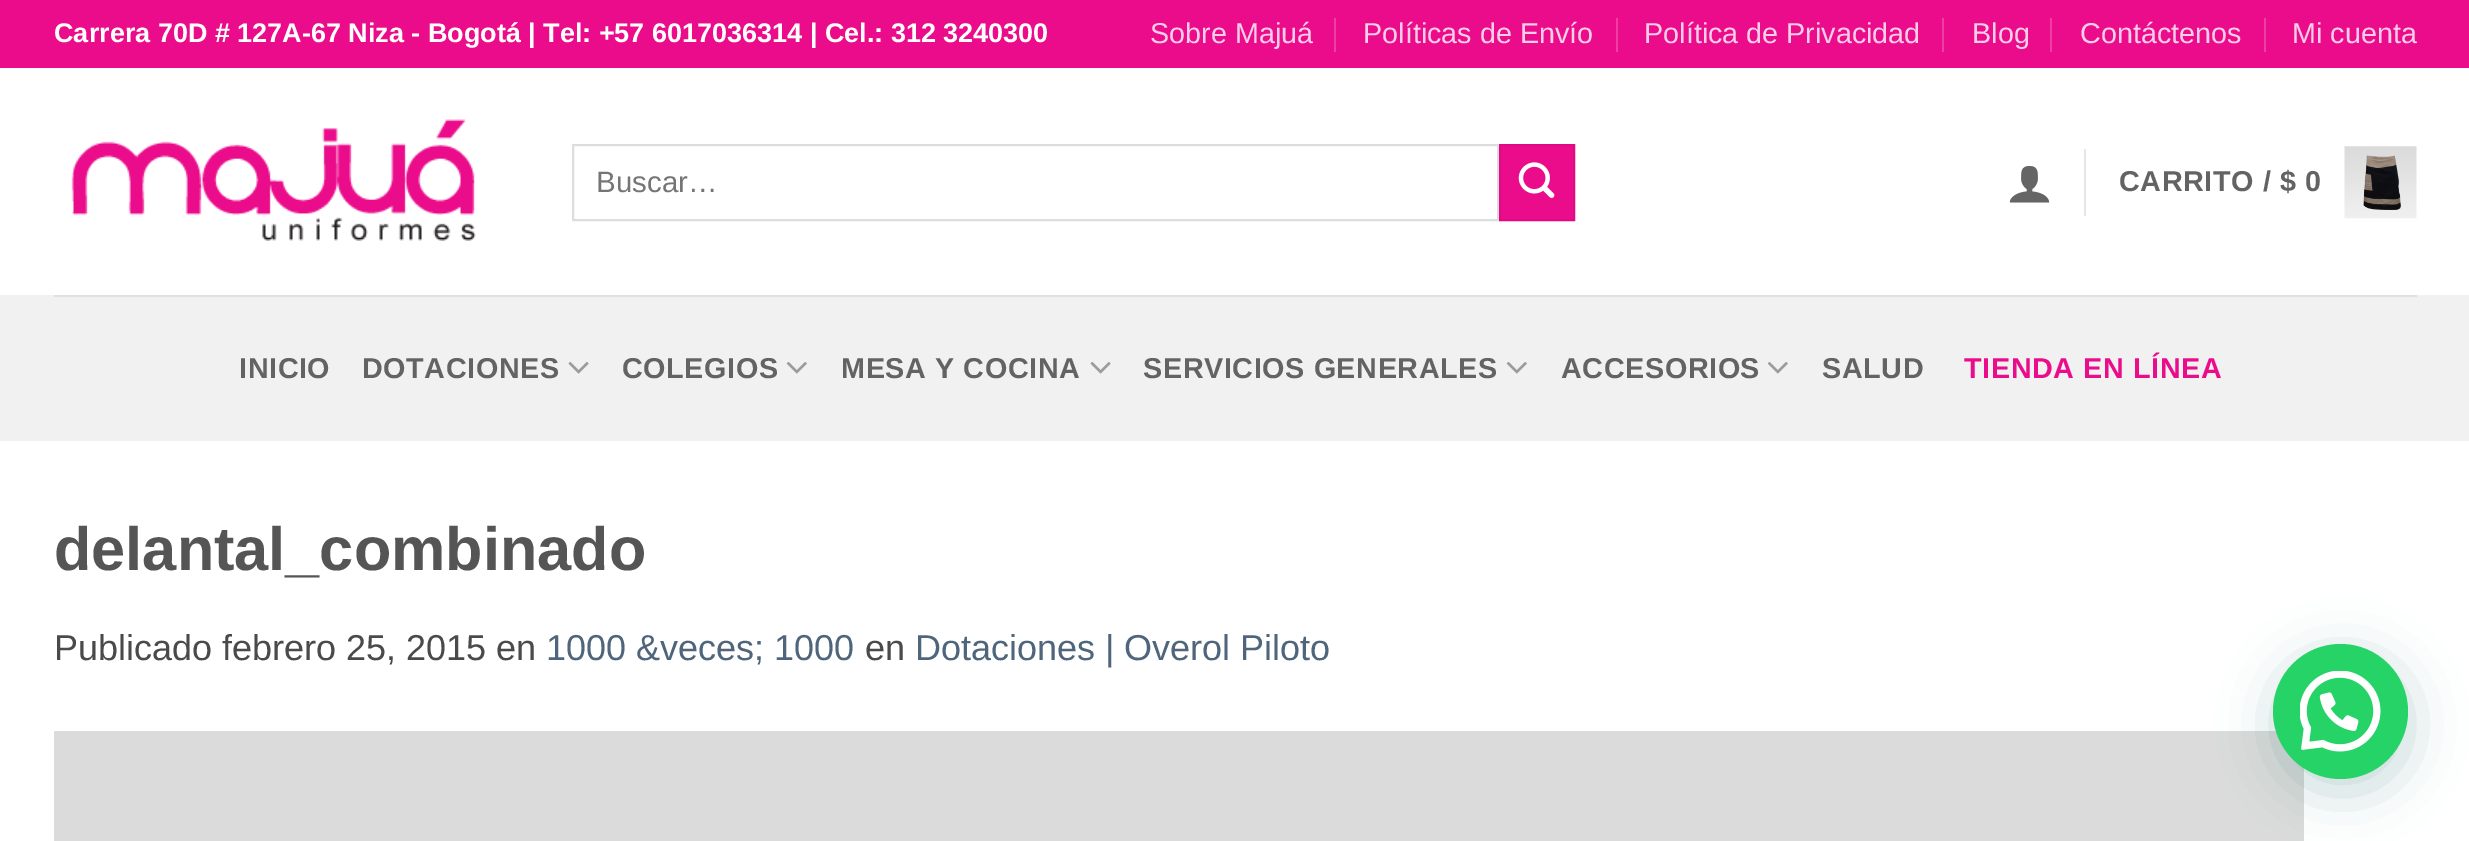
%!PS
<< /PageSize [2469 841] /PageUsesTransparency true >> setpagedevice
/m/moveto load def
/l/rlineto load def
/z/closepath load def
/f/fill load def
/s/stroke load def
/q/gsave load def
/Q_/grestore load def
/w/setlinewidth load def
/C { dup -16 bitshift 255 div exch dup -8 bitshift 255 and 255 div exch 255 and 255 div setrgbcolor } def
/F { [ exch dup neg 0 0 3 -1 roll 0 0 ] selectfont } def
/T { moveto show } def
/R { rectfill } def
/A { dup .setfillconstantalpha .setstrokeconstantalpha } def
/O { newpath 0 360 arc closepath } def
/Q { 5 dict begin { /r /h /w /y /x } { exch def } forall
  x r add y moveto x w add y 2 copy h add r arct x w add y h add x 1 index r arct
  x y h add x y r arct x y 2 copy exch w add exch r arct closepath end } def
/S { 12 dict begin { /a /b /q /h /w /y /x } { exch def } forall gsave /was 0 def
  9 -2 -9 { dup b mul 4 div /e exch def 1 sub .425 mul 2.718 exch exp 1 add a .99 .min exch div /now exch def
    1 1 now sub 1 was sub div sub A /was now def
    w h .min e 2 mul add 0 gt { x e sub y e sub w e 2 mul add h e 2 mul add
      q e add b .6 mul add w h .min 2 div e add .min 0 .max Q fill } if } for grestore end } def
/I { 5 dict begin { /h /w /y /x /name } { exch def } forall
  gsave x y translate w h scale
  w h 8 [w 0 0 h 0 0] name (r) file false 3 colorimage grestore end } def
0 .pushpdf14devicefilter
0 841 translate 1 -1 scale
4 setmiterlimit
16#FFFFFF C
0 0 2469 841 R
16#EB0C8B C
0 0 2469 68 R
/LiberationSans-Bold 27 F
16#FFFFFF C
(Carrera 70D # 127A-67 Niza - Bogotá | Tel: +57 6017036314 | Cel.: 312 3240300) 54 42 T
/LiberationSans-Regular 28.75 F
16#FBCEE8 C
(Sobre Majuá) 1150 43 T
16#EF3DA2 C
1334 18 2 34 R
16#FBCEE8 C
(Políticas de Envío) 1363 43 T
16#EF3DA2 C
1616 18 2 34 R
16#FBCEE8 C
(Política de Privacidad) 1644 43 T
16#EF3DA2 C
1942 18 2 34 R
16#FBCEE8 C
(Blog) 1972 43 T
16#EF3DA2 C
2050 18 2 34 R
16#FBCEE8 C
(Contáctenos) 2080 43 T
16#EF3DA2 C
2264 18 2 34 R
16#FBCEE8 C
(Mi cuenta) 2292 43 T
(1.rgb) 71 119 405 122 I
16#DDDDDD C
2 w
573 145 925 75 rectstroke
/LiberationSans-Regular 29.5 F
16#757575 C
(Buscar…) 596 192 T
16#EB0C8B C
1500 145 m 74 0 l 0 75 l -74 0 l z q f Q_
16#DF0B84 C
s
(2.rgb) 1518 162 37 36 I
(3.rgb) 2009 165 41 38 I
16#E6E6E6 C
2084 149 2 67 R
/LiberationSans-Bold 28.75 F
16#636363 C
2119 191 m .6 0 (CARRITO / $ 0) ashow
(4.rgb) 2344 146 73 73 I
16#F1F1F1 C
0 295 2469 146 R
16#E0E0E0 C
54 295 2363 2 R
16#636363 C
239 378 m .6 0 (INICIO) ashow
362 378 m .6 0 (DOTACIONES) ashow
(5.rgb) 568 362 21 12 I
622 378 m .6 0 (COLEGIOS) ashow
(6.rgb) 786 362 21 12 I
841 378 m .6 0 (MESA Y COCINA) ashow
(5.rgb) 1090 362 21 12 I
1143 378 m .6 0 (SERVICIOS GENERALES) ashow
(6.rgb) 1506 362 21 12 I
1561 378 m .6 0 (ACCESORIOS) ashow
(6.rgb) 1767 362 21 12 I
1822 378 m .6 0 (SALUD) ashow
16#EB0C8B C
1964 378 m .6 0 (TIENDA EN LÍNEA) ashow
/LiberationSans-Bold 61.25 F
16#555555 C
(delantal_combinado) 54 570 T
/LiberationSans-Regular 36 F
16#4A4A4A C
(Publicado febrero 25, 2015 en) 54 660 T
16#4E657B C
(1000 &veces; 1000) 546 660 T
16#4A4A4A C
(en) 865 660 T
16#4E657B C
(Dotaciones | Overol Piloto) 915 660 T
16#DBDBDB C
54 731 2250 110 R
16#075E54 C
2275 657 135 135 67.5 27 .24 S
16#25D366 C
2340.5 711.5 67.5 O f
(7.rgb) 2300 671 81 81 I
.poppdf14devicefilter showpage
